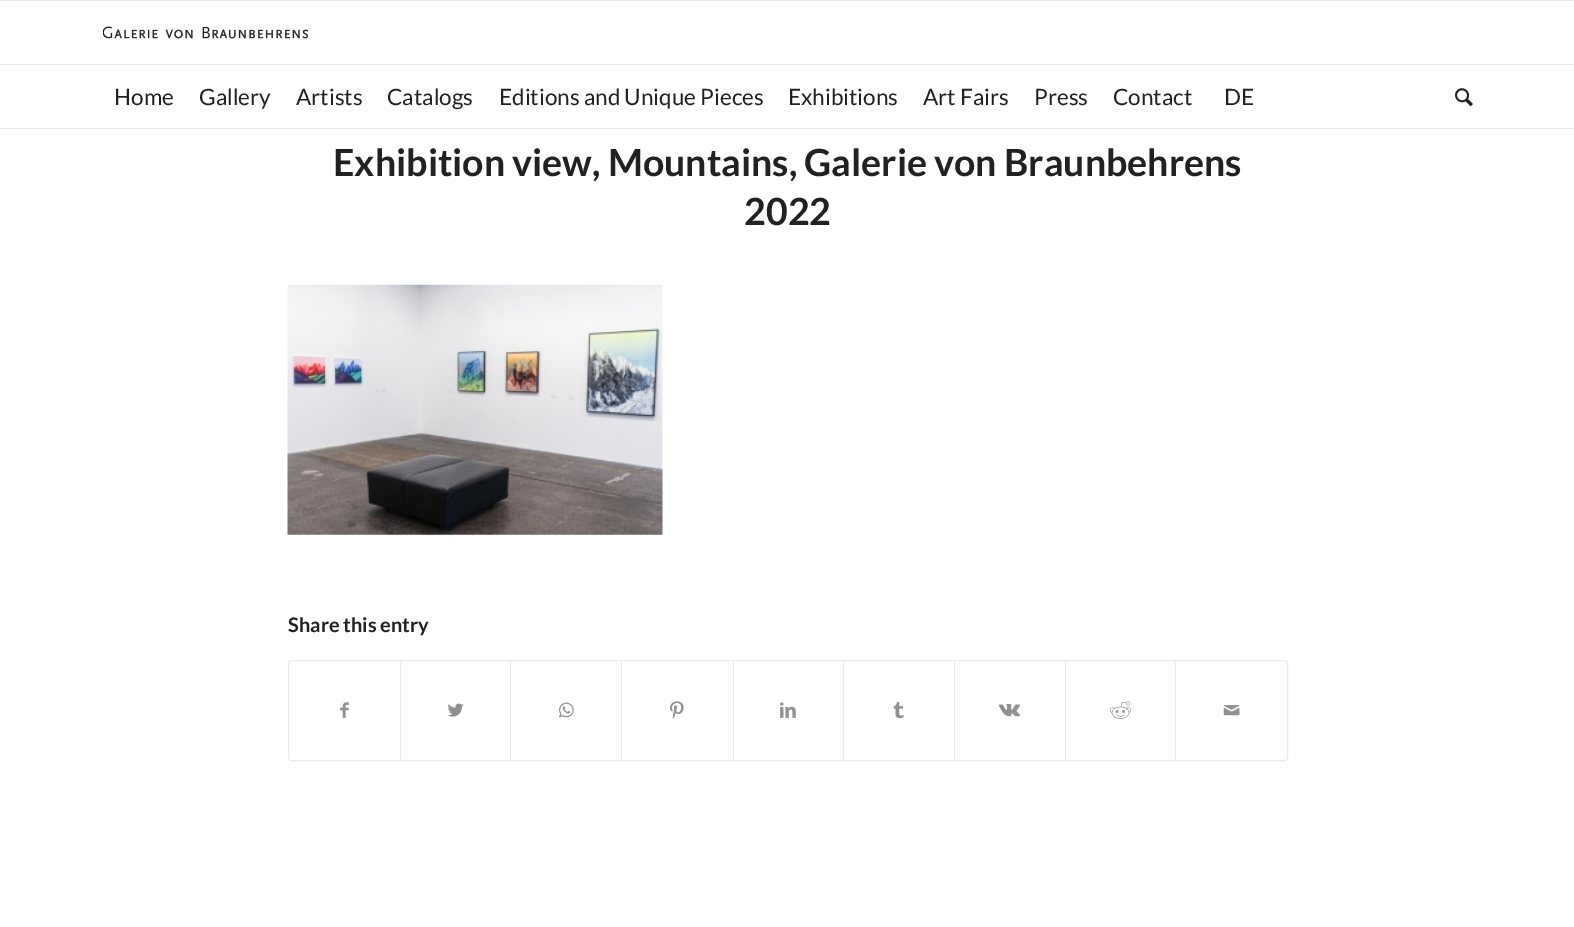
%!PS
<< /PageSize [1574 927] >> setpagedevice
/s/stroke load def
/C { dup -16 bitshift 255 div exch dup -8 bitshift 255 and 255 div exch 255 and 255 div setrgbcolor } def
/F { [ exch dup neg 0 0 3 -1 roll 0 0 ] selectfont } def
/T { moveto show } def
/R { rectfill } def
/Q { 5 dict begin { /r /h /w /y /x } { exch def } forall
  x r add y moveto x w add y 2 copy h add r arct x w add y h add x 1 index r arct
  x y h add x y r arct x y 2 copy exch w add exch r arct closepath end } def
/I { 5 dict begin { /h /w /y /x /name } { exch def } forall
  gsave x y translate w h scale
  w h 8 [w 0 0 h 0 0] name (r) file false 3 colorimage grestore end } def
0 927 translate 1 -1 scale
4 setmiterlimit
16#FFFFFF C
0 0 1574 927 R
16#EBEBEB C
0 0 1574 1 R
0 128 1574 1 R
(1.rgb) 103 26 205 13 I
0 64 1574 1 R
/Lato-Regular 22.5 F
16#212121 C
(Home) 114 105 T
(Gallery) 199 105 T
(Artists) 296 105 T
(Catalogs) 387 105 T
(Editions and Unique Pieces) 499 105 T
(Exhibitions) 788 105 T
(Art Fairs) 923 105 T
(Press) 1034 105 T
(Contact) 1113 105 T
(DE) 1224 105 T
(2.rgb) 1455 88 18 18 I
/Lato-Bold 37.5 F
(Exhibition view, Mountains, Galerie von Braunbehrens) 333 176 T
(2022) 744 225 T
(3.rgb) 287 284 376 251 I
/Lato-Bold 20 F
(Share this entry) 288 632 T
16#EBEBEB C
288.5 660.5 999 100 3.5 Q s
(4.rgb) 340 702 9 16 I
400 661 1 99 R
(5.rgb) 447 703 17 14 I
510 661 1 99 R
(6.rgb) 558 702 16 16 I
621 661 1 99 R
(7.rgb) 670 701 14 18 I
733 661 1 99 R
(8.rgb) 780 702 16 16 I
843 661 1 99 R
(9.rgb) 893 702 11 17 I
954 661 1 99 R
(10.rgb) 998 704 22 13 I
1065 661 1 99 R
(11.rgb) 1110 701 21 18 I
1175 661 1 99 R
(12.rgb) 1223 705 17 11 I
showpage
